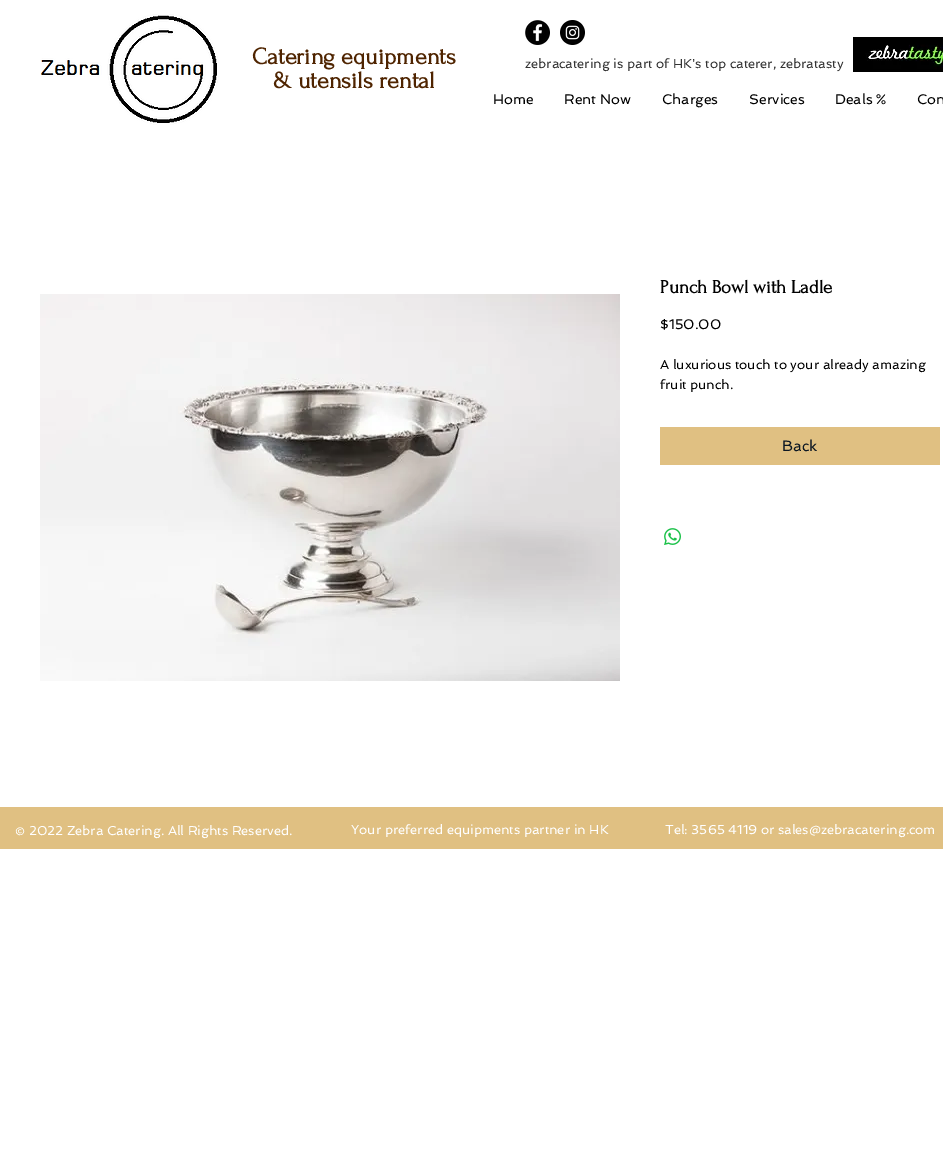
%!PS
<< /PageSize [943 1170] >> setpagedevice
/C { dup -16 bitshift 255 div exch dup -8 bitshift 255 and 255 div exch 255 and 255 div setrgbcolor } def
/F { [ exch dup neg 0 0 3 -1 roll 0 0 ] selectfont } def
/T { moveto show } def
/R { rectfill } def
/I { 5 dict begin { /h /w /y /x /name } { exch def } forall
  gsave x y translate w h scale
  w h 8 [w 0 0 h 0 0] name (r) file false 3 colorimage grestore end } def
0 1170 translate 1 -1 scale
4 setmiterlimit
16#FFFFFF C
0 0 943 1170 R
(1.rgb) 41 14 178 111 I
(2.rgb) 525 20 25 25 I
(3.rgb) 560 20 25 25 I
/Forum-Bold 24 F
16#4F2400 C
(Catering equipments) 252 64 T
(& utensils rental) 273 88 T
/Spinnaker-Regular 13 F
16#333333 C
(zebracatering is part of HK's top caterer, zebratasty) 525 68 T
(4.rgb) 853 37 90 35 I
/Spinnaker-Regular 14 F
16#000000 C
(Home) 493 104 T
(Rent Now) 564 104 T
(Charges) 662 104 T
(Services) 749 104 T
(Deals %) 835 104 T
(Con) 917 104 T
(5.rgb) 40 294 580 387 I
/Forum-Bold 19 F
(Punch Bowl with Ladle) 660 293 T
/Spinnaker-Regular 14 F
($150.00) 660 329 T
/Spinnaker-Regular 13 F
(A luxurious touch to your already amazing) 660 369 T
(fruit punch.) 660 389 T
16#E0C082 C
660 427 280 38 R
/Spinnaker-Regular 15 F
16#0C1723 C
(Back) 782 451 T
(6.rgb) 664 528 17 17 I
16#E0C082 C
0 807 943 42 R
/Spinnaker-Regular 13 F
16#FFFFFF C
(© 2022 Zebra Catering. All Rights Reserved.) 15 835 T
(Your preferred equipments partner in HK) 351 834 T
(Tel: 3565 4119 or sales@zebracatering.com) 665 834 T
showpage
